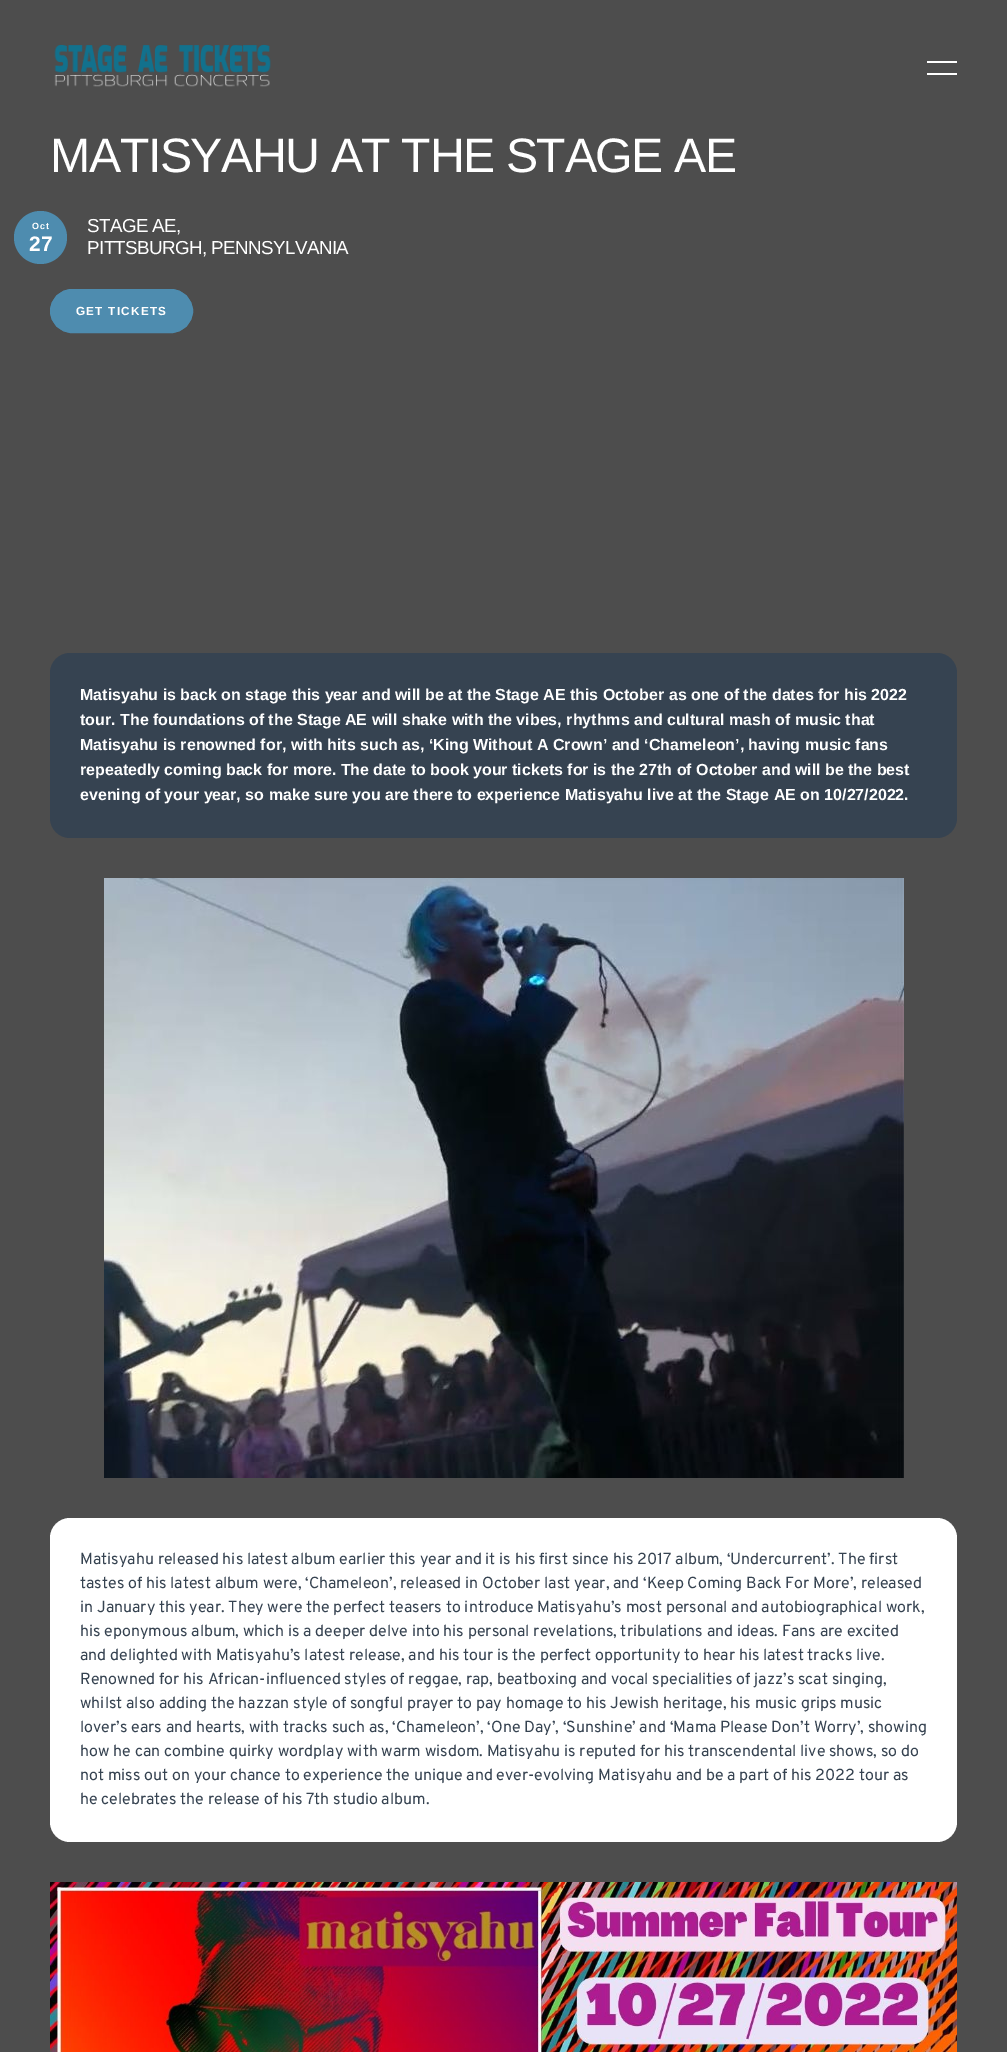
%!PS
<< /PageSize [1007 2052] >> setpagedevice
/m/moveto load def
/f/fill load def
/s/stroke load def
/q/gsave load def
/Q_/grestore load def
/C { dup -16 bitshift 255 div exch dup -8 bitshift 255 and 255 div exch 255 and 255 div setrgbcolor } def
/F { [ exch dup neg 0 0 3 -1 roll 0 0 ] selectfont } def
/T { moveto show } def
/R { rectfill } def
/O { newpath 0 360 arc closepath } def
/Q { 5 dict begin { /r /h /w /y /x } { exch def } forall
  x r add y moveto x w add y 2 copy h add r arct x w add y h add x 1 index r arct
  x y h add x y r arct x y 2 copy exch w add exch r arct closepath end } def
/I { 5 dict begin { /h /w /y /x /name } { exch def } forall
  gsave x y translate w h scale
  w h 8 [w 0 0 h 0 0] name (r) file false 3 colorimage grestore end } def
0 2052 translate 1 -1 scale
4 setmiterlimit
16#4D4D4D C
0 0 1007 2052 R
(1.rgb) 54 44 217 43 I
16#FFFFFF C
927 61 30 2 R
927 73 30 2 R
/LiberationSans-Regular 48.3 F
50 172 m -1.45 0 (MATISYAHU AT THE STAGE AE) ashow
16#4E8CAF C
40.5 237.5 26.5 O f
/LiberationSans-Bold 9 F
16#FFFFFF C
32 229 m 1 0 (Oct) ashow
/LiberationSans-Bold 21 F
(27) 29 251 T
/LiberationSans-Regular 18.8 F
87 232 m -.6 0 (STAGE AE,) ashow
87 254 m -.6 0 (PITTSBURGH, PENNSYLVANIA) ashow
16#4E8CAF C
50.5 289.5 142 43 21.5 Q q f Q_
s
/LiberationSans-Bold 11.75 F
16#FFFFFF C
76 315 m 1.25 0 (GET TICKETS) ashow
16#364351 C
50 653 907 185 20 Q f
/LiberationSans-Bold 16 F
16#FFFFFF C
(Matisyahu is back on stage this year and will be at the Stage AE this October as one of the dates for his 2022) 80 700 T
(tour. The foundations of the Stage AE will shake with the vibes, rhythms and cultural mash of music that) 80 725 T
(Matisyahu is renowned for, with hits such as, ‘King Without A Crown’ and ‘Chameleon’, having music fans) 80 750 T
(repeatedly coming back for more. The date to book your tickets for is the 27th of October and will be the best) 80 775 T
(evening of your year, so make sure you are there to experience Matisyahu live at the Stage AE on 10/27/2022.) 80 800 T
(2.rgb) 104 878 800 600 I
50 1518 907 324 20 Q f
/Overpass-Regular 16 F
16#364351 C
(Matisyahu released his latest album earlier this year and it is his first since his 2017 album, ‘Undercurrent’. The first) 80 1564 T
(tastes of his latest album were, ‘Chameleon’, released in October last year, and ‘Keep Coming Back For More’, released) 80 1588 T
(in January this year. They were the perfect teasers to introduce Matisyahu’s most personal and autobiographical work,) 80 1612 T
(his eponymous album, which is a deeper delve into his personal revelations, tribulations and ideas. Fans are excited) 80 1636 T
(and delighted with Matisyahu’s latest release, and his tour is the perfect opportunity to hear his latest tracks live.) 80 1660 T
(Renowned for his African-influenced styles of reggae, rap, beatboxing and vocal specialities of jazz’s scat singing,) 80 1684 T
(whilst also adding the hazzan style of songful prayer to pay homage to his Jewish heritage, his music grips music) 80 1708 T
(lover’s ears and hearts, with tracks such as, ‘Chameleon’, ‘One Day’, ‘Sunshine’ and ‘Mama Please Don’t Worry’, showing) 80 1732 T
(how he can combine quirky wordplay with warm wisdom. Matisyahu is reputed for his transcendental live shows, so do) 80 1756 T
(not miss out on your chance to experience the unique and ever-evolving Matisyahu and be a part of his 2022 tour as) 80 1780 T
(he celebrates the release of his 7th studio album.) 80 1804 T
(3.rgb) 50 1882 907 170 I
showpage
